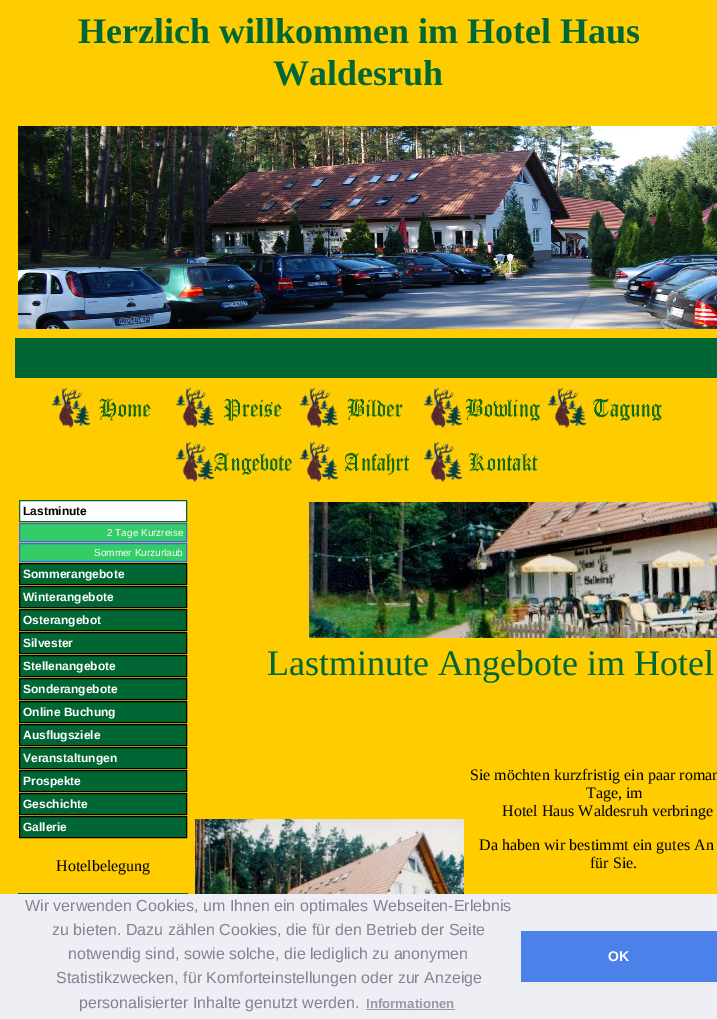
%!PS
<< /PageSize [717 1019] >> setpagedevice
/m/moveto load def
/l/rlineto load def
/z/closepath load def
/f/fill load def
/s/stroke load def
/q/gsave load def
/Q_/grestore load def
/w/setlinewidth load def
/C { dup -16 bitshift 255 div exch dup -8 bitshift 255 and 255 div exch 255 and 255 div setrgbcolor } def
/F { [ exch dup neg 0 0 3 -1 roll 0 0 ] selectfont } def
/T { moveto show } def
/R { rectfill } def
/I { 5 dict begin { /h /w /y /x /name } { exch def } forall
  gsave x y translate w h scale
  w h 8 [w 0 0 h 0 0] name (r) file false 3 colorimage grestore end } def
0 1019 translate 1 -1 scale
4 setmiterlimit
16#FFCC00 C
0 0 717 1019 R
/LiberationSerif-Bold 36 F
16#006633 C
(Herzlich willkommen im Hotel Haus) 78 43 T
(Waldesruh) 273 85 T
(1.rgb) 18 126 699 203 I
15 338 702 40 R
(2.rgb) 51 388 100 40 I
(3.rgb) 175 388 107 40 I
(4.rgb) 299 388 104 40 I
(5.rgb) 423 388 117 40 I
(6.rgb) 547 388 115 40 I
(7.rgb) 175 442 118 40 I
(8.rgb) 299 442 110 40 I
(9.rgb) 423 442 115 40 I
16#FFFFFF C
19.5 500.5 m 167 0 l 0 21 l -167 0 l z q f Q_
16#006633 C
s
/LiberationSans-Bold 12 F
16#000000 C
(Lastminute) 23 515 T
16#33CC66 C
19.5 523.5 m 167 0 l 0 18 l -167 0 l z q f Q_
16#3366FF C
s
/LiberationSans-Regular 10 F
16#FFFFFF C
(2 Tage Kurzreise) 107 536 T
16#33CC66 C
19.5 543.5 m 167 0 l 0 18 l -167 0 l z q f Q_
16#3366FF C
s
16#FFFFFF C
(Sommer Kurzurlaub) 94 556 T
16#006633 C
19.5 563.5 m 167 0 l 0 21 l -167 0 l z q f Q_
16#000000 C
s
/LiberationSans-Bold 12 F
16#FFFFFF C
(Sommerangebote) 23 578 T
16#006633 C
19.5 586.5 m 167 0 l 0 21 l -167 0 l z q f Q_
16#000000 C
s
16#FFFFFF C
(Winterangebote) 23 601 T
16#006633 C
19.5 609.5 m 167 0 l 0 21 l -167 0 l z q f Q_
16#000000 C
s
16#FFFFFF C
(Osterangebot) 23 624 T
16#006633 C
19.5 632.5 m 167 0 l 0 21 l -167 0 l z q f Q_
16#000000 C
s
16#FFFFFF C
(Silvester) 23 647 T
16#006633 C
19.5 655.5 m 167 0 l 0 21 l -167 0 l z q f Q_
16#000000 C
s
16#FFFFFF C
(Stellenangebote) 23 670 T
16#006633 C
19.5 678.5 m 167 0 l 0 21 l -167 0 l z q f Q_
16#000000 C
s
16#FFFFFF C
(Sonderangebote) 23 693 T
16#006633 C
19.5 701.5 m 167 0 l 0 21 l -167 0 l z q f Q_
16#000000 C
s
16#FFFFFF C
(Online Buchung) 23 716 T
16#006633 C
19.5 724.5 m 167 0 l 0 21 l -167 0 l z q f Q_
16#000000 C
s
16#FFFFFF C
(Ausflugsziele) 23 739 T
16#006633 C
19.5 747.5 m 167 0 l 0 21 l -167 0 l z q f Q_
16#000000 C
s
16#FFFFFF C
(Veranstaltungen) 23 762 T
16#006633 C
19.5 770.5 m 167 0 l 0 21 l -167 0 l z q f Q_
16#000000 C
s
16#FFFFFF C
(Prospekte) 23 785 T
16#006633 C
19.5 793.5 m 167 0 l 0 21 l -167 0 l z q f Q_
16#000000 C
s
16#FFFFFF C
(Geschichte) 23 808 T
16#006633 C
19.5 816.5 m 167 0 l 0 21 l -167 0 l z q f Q_
16#000000 C
s
16#FFFFFF C
(Gallerie) 23 831 T
/LiberationSerif-Regular 16 F
16#000000 C
(Hotelbelegung) 56 871 T
16#006633 C
2 w
19 894 168 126 rectstroke
(10.rgb) 309 502 408 136 I
/LiberationSerif-Regular 36 F
(Lastminute Angebote im Hotel) 267 675 T
(11.rgb) 195 819 269 75 I
/LiberationSerif-Regular 16 F
16#000000 C
(Sie möchten kurzfristig ein paar roman) 470 780 T
(Tage, im) 586 798 T
(Hotel Haus Waldesruh verbringe) 502 816 T
(Da haben wir bestimmt ein gutes An) 479 850 T
(für Sie.) 590 868 T
16#EDEFF5 C
0 894 717 125 R
/LiberationSans-Regular 16 F
16#838391 C
(Wir verwenden Cookies, um Ihnen ein optimales Webseiten-Erlebnis) 25 911 T
(zu bieten. Dazu zählen Cookies, die für den Betrieb der Seite) 52 935 T
(notwendig sind, sowie solche, die lediglich zu anonymen) 68 959 T
(Statistikzwecken, für Komforteinstellungen oder zur Anzeige) 56 983 T
(personalisierter Inhalte genutzt werden.) 79 1008 T
/LiberationSans-Bold 13.25 F
16#9899A5 C
(Informationen) 366 1008 T
366 1009 89 1 R
16#4B81E8 C
521 931 196 51 R
/LiberationSans-Bold 14 F
16#FFFFFF C
(OK) 608 961 T
showpage
